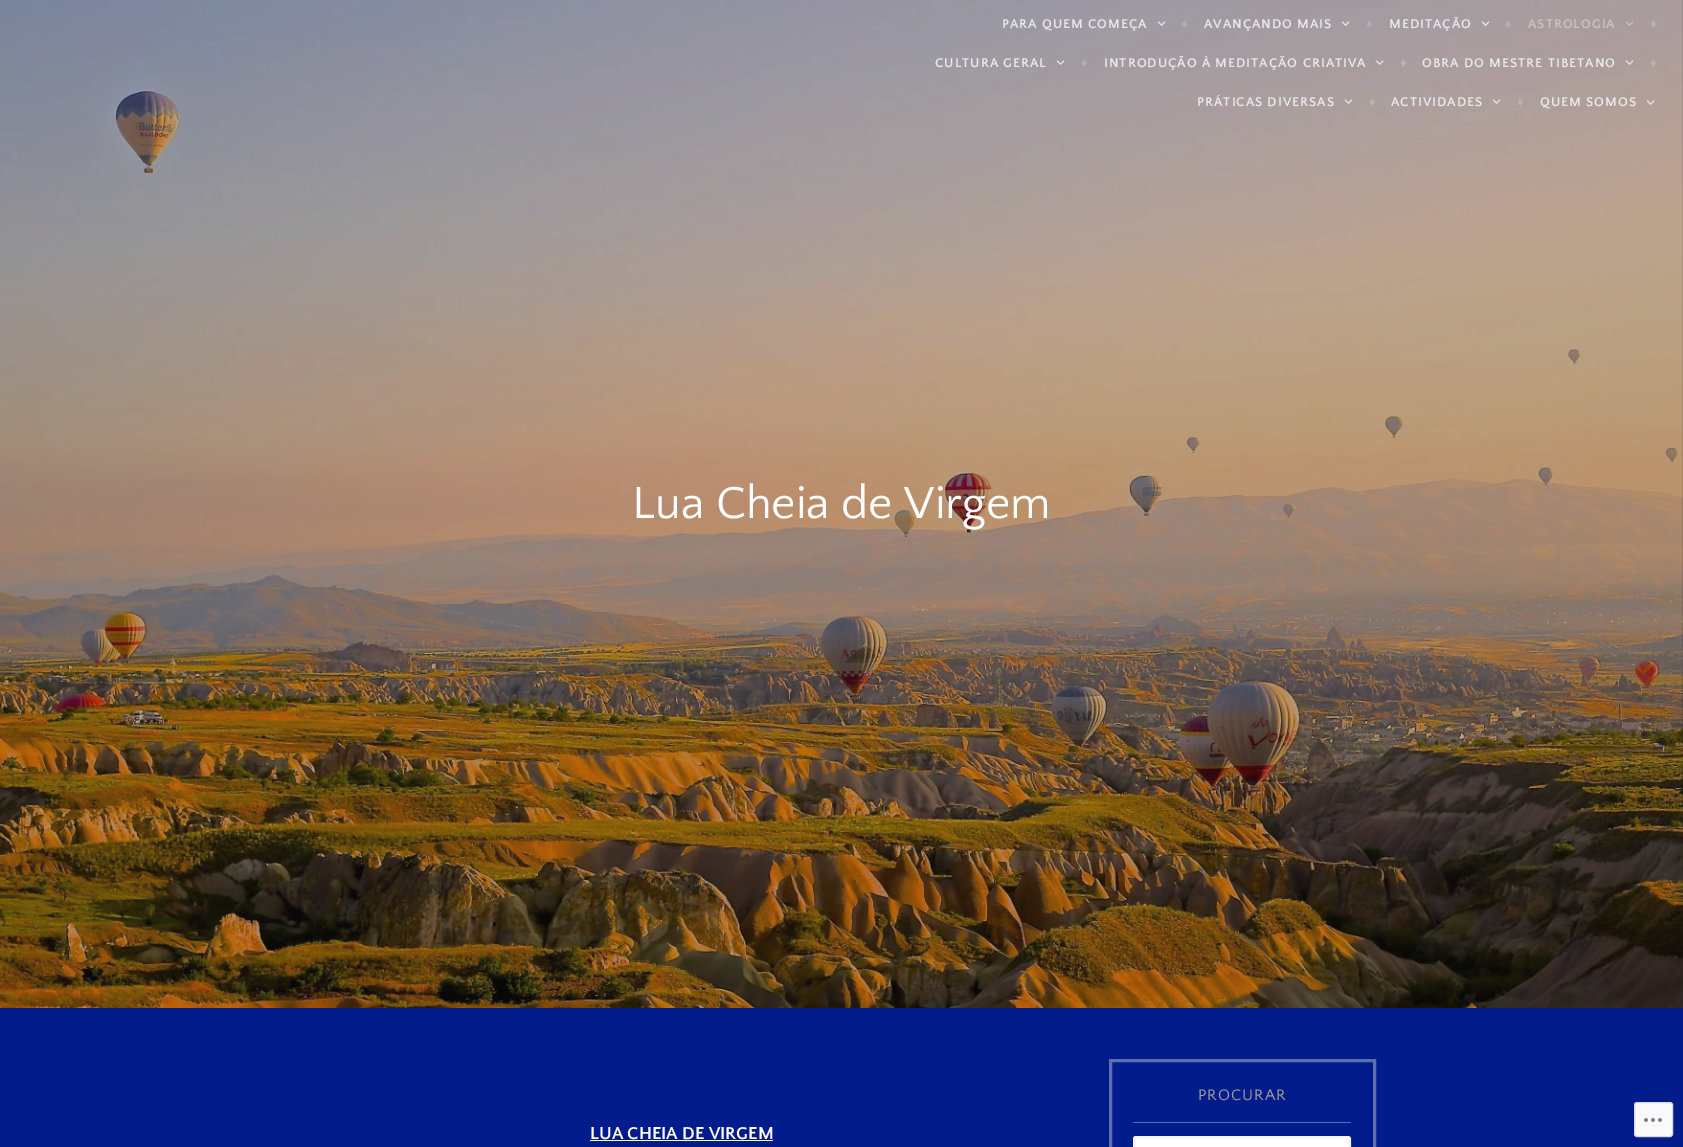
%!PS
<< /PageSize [1683 1147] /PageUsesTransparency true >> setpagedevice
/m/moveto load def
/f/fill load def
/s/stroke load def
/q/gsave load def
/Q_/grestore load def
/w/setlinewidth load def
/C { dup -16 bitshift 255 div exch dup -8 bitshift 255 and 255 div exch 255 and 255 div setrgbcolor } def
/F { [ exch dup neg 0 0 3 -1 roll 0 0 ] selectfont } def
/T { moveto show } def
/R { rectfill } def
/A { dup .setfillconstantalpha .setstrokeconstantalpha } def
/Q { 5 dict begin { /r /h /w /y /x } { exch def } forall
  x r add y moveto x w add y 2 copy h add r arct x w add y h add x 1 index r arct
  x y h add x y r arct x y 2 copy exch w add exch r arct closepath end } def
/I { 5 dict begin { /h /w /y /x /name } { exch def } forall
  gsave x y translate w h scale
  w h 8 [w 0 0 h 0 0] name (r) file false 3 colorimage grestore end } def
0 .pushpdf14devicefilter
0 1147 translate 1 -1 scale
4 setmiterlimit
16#031C8B C
0 0 1683 1147 R
16#1E1C1B C
0 0 1683 1008 R
(1.rgb) 0 0 1683 1008 I
/QuattrocentoSans-Bold 13.25 F
16#E8E9EA C
1002 28 m 1 0 (PARA QUEM COMEÇA) ashow
(2.rgb) 1157 21 9 5 I
/LiberationSans-Bold 13.25 F
16#B2AEB4 C
1181 28 m 1 0 (♦) ashow
/QuattrocentoSans-Bold 13.25 F
16#E8E9EA C
1204 28 m 1 0 (AVANÇANDO MAIS) ashow
(3.rgb) 1341 21 9 5 I
/LiberationSans-Bold 13.25 F
16#B2AEB4 C
1366 28 m 1 0 (♦) ashow
/QuattrocentoSans-Bold 13.25 F
16#E8E9EA C
1389 28 m 1 0 (MEDITAÇÃO) ashow
(4.rgb) 1481 21 9 5 I
/LiberationSans-Bold 13.25 F
16#B2AEB4 C
1505 28 m 1 0 (♦) ashow
/QuattrocentoSans-Bold 13.25 F
16#C9C3C4 C
1528 28 m 1 0 (ASTROLOGIA) ashow
(5.rgb) 1625 21 9 5 I
/LiberationSans-Bold 13.25 F
16#BAB0B0 C
1650 28 m 1 0 (♦) ashow
/QuattrocentoSans-Bold 13.25 F
16#E8E9EA C
935 67 m 1 0 (CULTURA GERAL) ashow
(6.rgb) 1056 60 9 5 I
/LiberationSans-Bold 13.25 F
16#B2AEB4 C
1081 67 m 1 0 (♦) ashow
/QuattrocentoSans-Bold 13.25 F
16#E8E9EA C
1104 67 m 1 0 (INTRODUÇÃO À MEDITAÇÃO CRIATIVA) ashow
(7.rgb) 1375 60 9 5 I
/LiberationSans-Bold 13.25 F
16#BAB0B0 C
1400 67 m 1 0 (♦) ashow
/QuattrocentoSans-Bold 13.25 F
16#E8E9EA C
1422 67 m 1 0 (OBRA DO MESTRE TIBETANO) ashow
(8.rgb) 1625 60 9 5 I
/LiberationSans-Bold 13.25 F
16#BAB0B0 C
1650 67 m 1 0 (♦) ashow
/QuattrocentoSans-Bold 13.25 F
16#E8E9EA C
1197 106 m 1 0 (PRÁTICAS DIVERSAS) ashow
(9.rgb) 1344 99 9 5 I
/LiberationSans-Bold 13.25 F
16#BAB0B0 C
1369 106 m 1 0 (♦) ashow
/QuattrocentoSans-Bold 13.25 F
16#E8E9EA C
1391 106 m 1 0 (ACTIVIDADES) ashow
(10.rgb) 1492 99 9 5 I
/LiberationSans-Bold 13.25 F
16#BAB0B0 C
1517 106 m 1 0 (♦) ashow
/QuattrocentoSans-Bold 13.25 F
16#E8E9EA C
1540 106 m 1 0 (QUEM SOMOS) ashow
(11.rgb) 1646 100 9 5 I
/QuattrocentoSans-Regular 47.1 F
16#FFFFFF C
(Lua Cheia de Virgem) 632 518 T
16#5F6EB1 C
3 w
1110.5 1060.5 264 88 rectstroke
1133 1122 218 1 R
/QuattrocentoSans-Regular 16 F
16#A69E9A C
1198 1100 m 1 0 (PROCURAR) ashow
16#FFFFFF C
1133 1136 218 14 3 Q f
0.4 A
16#E8E9EA C
1134.5 1137.5 215 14 1.5 Q s
/QuattrocentoSans-Bold 18 F
1 A
16#FFFFFF C
(LUA CHEIA DE VIRGEM) 590 1139 T
590 1140 183 1 R
16#FAFAFD C
1634.5 1102.5 38 34 2.5 Q q f Q_
16#D8D8DC C
1 w
s
(12.rgb) 1644 1118 18 4 I
.poppdf14devicefilter showpage
